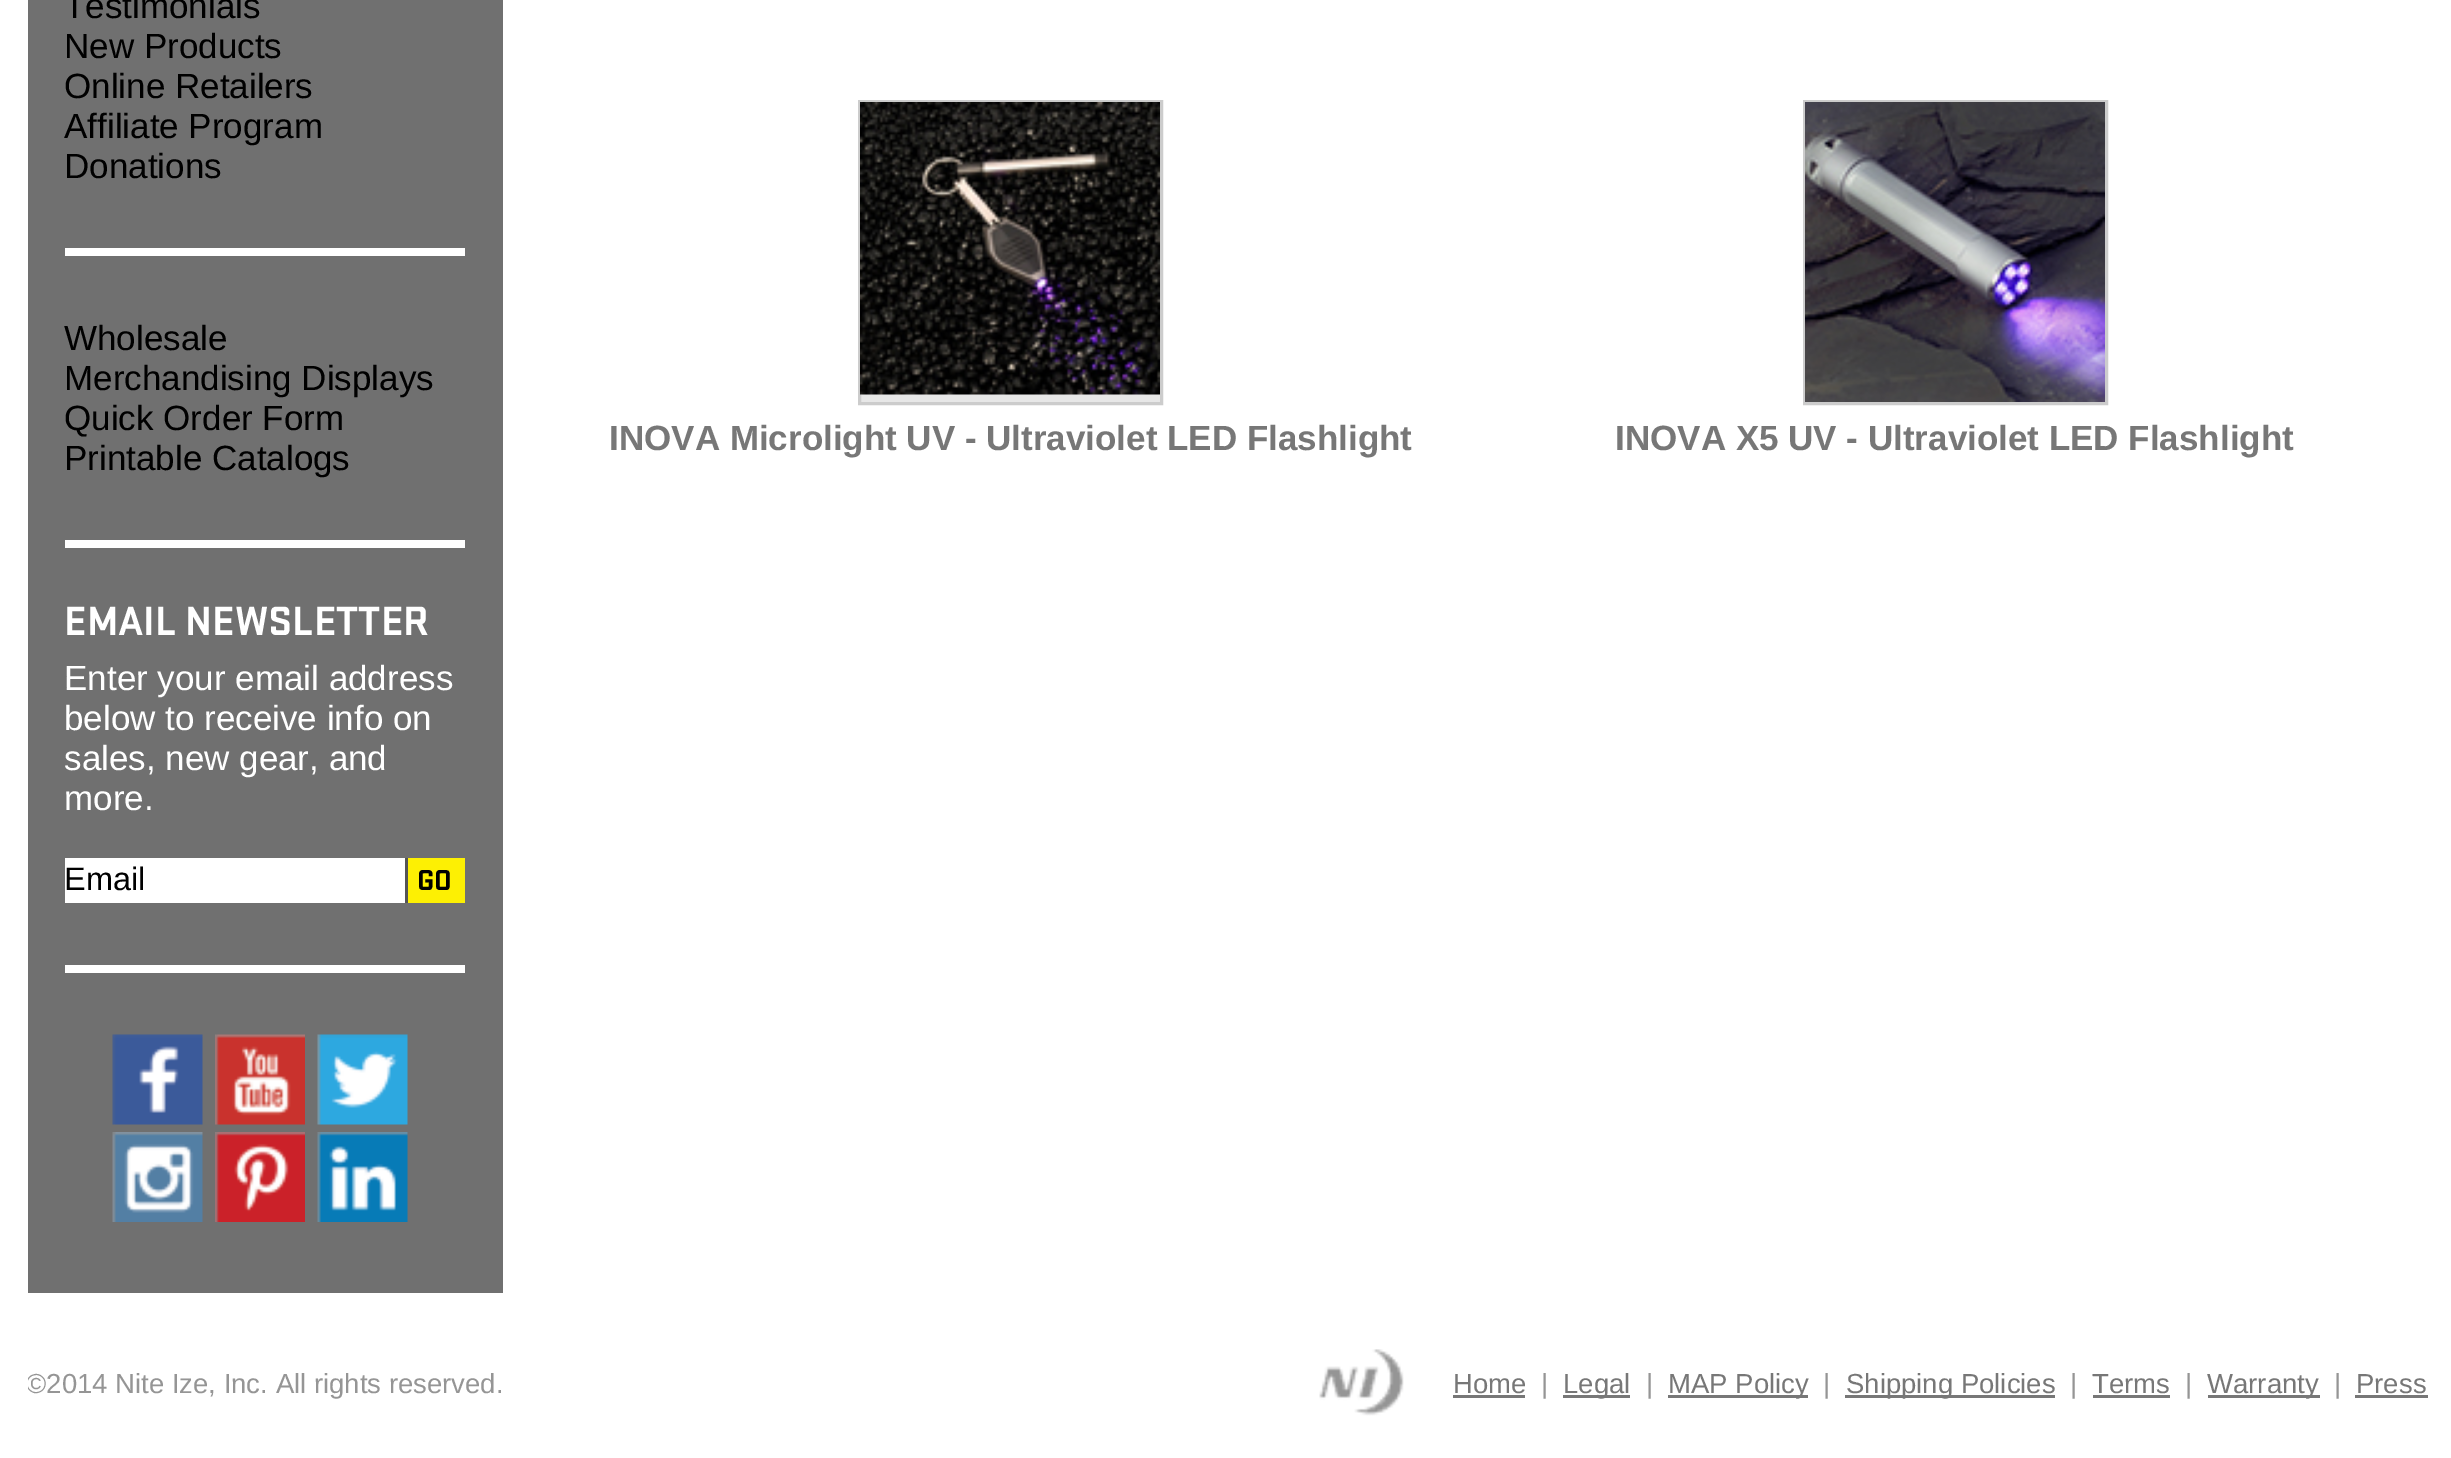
%!PS
<< /PageSize [2451 1458] >> setpagedevice
/q/gsave load def
/Q_/grestore load def
/w/setlinewidth load def
/C { dup -16 bitshift 255 div exch dup -8 bitshift 255 and 255 div exch 255 and 255 div setrgbcolor } def
/F { [ exch dup neg 0 0 3 -1 roll 0 0 ] selectfont } def
/T { moveto show } def
/R { rectfill } def
/I { 5 dict begin { /h /w /y /x /name } { exch def } forall
  gsave x y translate w h scale
  w h 8 [w 0 0 h 0 0] name (r) file false 3 colorimage grestore end } def
0 1458 translate 1 -1 scale
4 setmiterlimit
16#FFFFFF C
0 0 2451 1458 R
16#707070 C
28 0 475 1293 R
16#FFFFFF C
65 540 400 8 R
/LiberationSans-Regular 35 F
16#000000 C
(Testimonials) 64 18 T
(New Products) 64 58 T
(Online Retailers) 64 98 T
(Affiliate Program) 64 138 T
(Donations) 64 178 T
16#FFFFFF C
65 248 400 8 R
16#000000 C
(Wholesale) 64 350 T
(Merchandising Displays) 64 390 T
(Quick Order Form) 64 430 T
(Printable Catalogs) 64 470 T
/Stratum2-Bold 42.5 F
16#FFFFFF C
(EMAIL NEWSLETTER) 64 635 T
/LiberationSans-Regular 35 F
(Enter your email address) 64 690 T
(below to receive info on) 64 730 T
(sales, new gear, and) 64 770 T
(more.) 64 810 T
65 858 340 45 R
/LiberationSans-Regular 32.5 F
16#000000 C
(Email) 64 890 T
16#FDF003 C
408 858 57 45 R
16#555555 C
405 858 3 45 R
/Stratum2-Bold 30 F
16#000000 C
(GO) 417 890 T
16#FFFFFF C
65 965 400 8 R
(1.rgb) 112 1034 91 91 I
(2.rgb) 215 1034 90 91 I
(3.rgb) 317 1034 91 91 I
(4.rgb) 112 1132 91 90 I
(5.rgb) 215 1132 90 90 I
(6.rgb) 317 1132 91 90 I
16#DDDDDD C
861 394 299 8 R
(7.rgb) 861 394 299 8 I
16#CCCCCC C
3 w
859.5 101.5 302 302 rectstroke
(8.rgb) 860 102 300 293 I
/LiberationSans-Bold 35 F
16#777777 C
(INOVA Microlight UV - Ultraviolet LED Flashlight) 609 450 T
16#CCCCCC C
1804.5 101.5 302 302 rectstroke
(9.rgb) 1805 102 300 300 I
16#777777 C
(INOVA X5 UV - Ultraviolet LED Flashlight) 1615 450 T
q
28 1343 475 80 rectclip
/LiberationSans-Regular 27.5 F
16#959595 C
(©2014 Nite Ize, Inc. All rights reserved.) 26 1393 T
Q_
(10.rgb) 1319 1349 85 67 I
/LiberationSans-Regular 27.5 F
(Home) 1453 1393 T
1453 1395 72 3 R
16#959595 C
(|) 1541 1393 T
16#777777 C
1563 1395 67 3 R
(Legal) 1563 1393 T
16#959595 C
(|) 1646 1393 T
16#777777 C
1668 1395 140 3 R
(MAP Policy) 1668 1393 T
16#959595 C
(|) 1823 1393 T
16#777777 C
1845 1395 210 3 R
(Shipping Policies) 1846 1393 T
16#959595 C
(|) 2070 1393 T
16#777777 C
(Terms) 2092 1393 T
2093 1395 77 3 R
16#959595 C
(|) 2185 1393 T
16#777777 C
2208 1395 112 3 R
(Warranty) 2207 1393 T
16#959595 C
(|) 2334 1393 T
16#777777 C
(Press) 2356 1393 T
2355 1395 73 3 R
showpage
